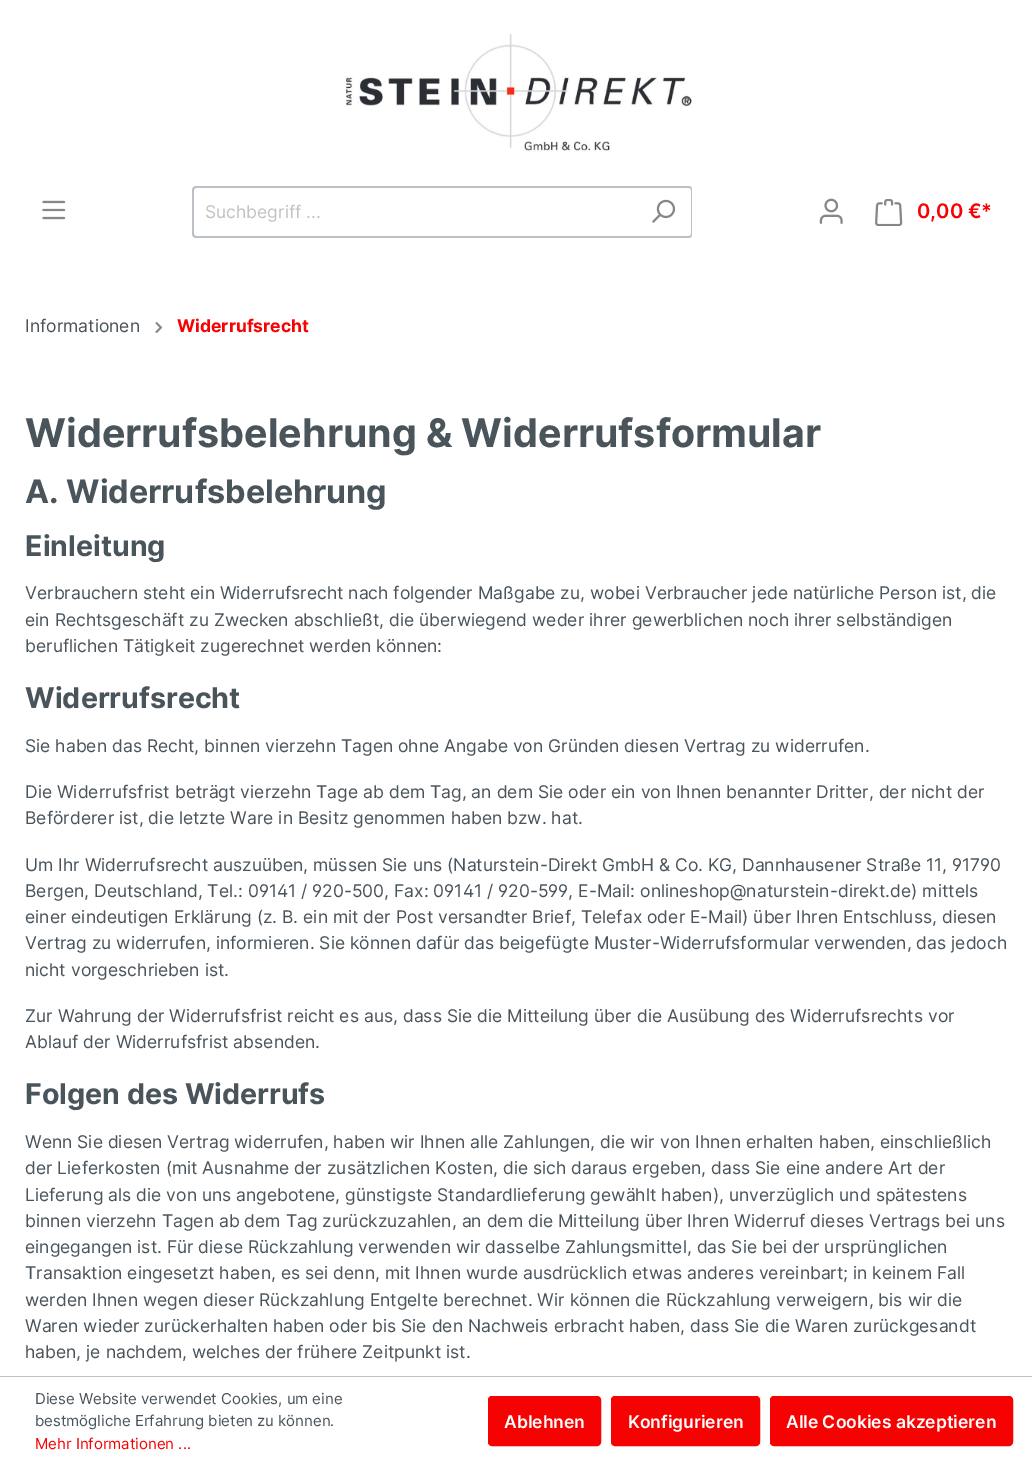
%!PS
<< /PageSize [1032 1464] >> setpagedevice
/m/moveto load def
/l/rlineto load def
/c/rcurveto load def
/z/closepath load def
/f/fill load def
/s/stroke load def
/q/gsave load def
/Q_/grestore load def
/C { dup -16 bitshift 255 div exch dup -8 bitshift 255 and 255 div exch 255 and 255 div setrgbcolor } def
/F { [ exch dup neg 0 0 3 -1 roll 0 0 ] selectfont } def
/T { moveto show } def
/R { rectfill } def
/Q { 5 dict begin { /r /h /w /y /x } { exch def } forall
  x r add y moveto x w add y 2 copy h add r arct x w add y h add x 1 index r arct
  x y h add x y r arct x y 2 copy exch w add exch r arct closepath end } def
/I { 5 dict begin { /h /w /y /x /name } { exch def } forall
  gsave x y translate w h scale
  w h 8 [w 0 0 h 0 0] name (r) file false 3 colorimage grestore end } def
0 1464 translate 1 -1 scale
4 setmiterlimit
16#FFFFFF C
0 0 1032 1464 R
(1.rgb) 346 33 346 119 I
(2.rgb) 42 200 24 20 I
16#BCC1C7 C
196 186 m 439 0 l 0 52 l -439 0 l -2 0 -4 -2 -4 -4 c 0 -44 l 0 -2 2 -4 4 -4 c z 196 188 m 439 0 l 0 48 l -439 0 l -1 0 -2 -1 -2 -2 c 0 -44 l 0 -1 1 -2 2 -2 c z eofill
/Inter-Regular 17.5 F
16#C3C3C3 C
(Suchbegriff ...) 205 218 T
16#FFFFFF C
634 186 m 55 0 l 2 0 4 2 4 4 c 0 44 l 0 2 -2 4 -4 4 c -55 0 l z f
16#BCC1C7 C
634 186 m 55 0 l 2 0 3 2 3 4 c 0 44 l 0 2 -1 4 -3 4 c -55 0 l z 634 188 m 55 0 l 1 0 2 1 2 2 c 0 44 l 0 1 -1 2 -2 2 c -55 0 l z eofill
(3.rgb) 652 199 24 24 I
(4.rgb) 819 198 24 26 I
(5.rgb) 875 199 28 27 I
/Inter-SemiBold 20 F
16#F70202 C
(0,00 €*) 917 218 T
/Inter-Regular 17.5 F
16#4A545B C
(Informationen) 25 332 T
(6.rgb) 155 322 7 11 I
/Inter-Bold 17.5 F
16#F70202 C
(Widerrufsrecht) 177 332 T
/Inter-Bold 39.4 F
16#4A545B C
(Widerrufsbelehrung & Widerrufsformular) 25 447 T
/Inter-Bold 32.25 F
(A. Widerrufsbelehrung) 25 503 T
/Inter-Bold 28.6 F
(Einleitung) 25 556 T
/Inter-Regular 17.5 F
(Verbrauchern steht ein Widerrufsrecht nach folgender Maßgabe zu, wobei Verbraucher jede natürliche Person ist, die) 25 599 T
(ein Rechtsgeschäft zu Zwecken abschließt, die überwiegend weder ihrer gewerblichen noch ihrer selbständigen) 25 626 T
(beruflichen Tätigkeit zugerechnet werden können:) 25 652 T
/Inter-Bold 28.6 F
(Widerrufsrecht) 25 708 T
/Inter-Regular 17.5 F
(Sie haben das Recht, binnen vierzehn Tagen ohne Angabe von Gründen diesen Vertrag zu widerrufen.) 25 752 T
(Die Widerrufsfrist beträgt vierzehn Tage ab dem Tag, an dem Sie oder ein von Ihnen benannter Dritter, der nicht der) 25 798 T
(Beförderer ist, die letzte Ware in Besitz genommen haben bzw. hat.) 25 824 T
/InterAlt-Regular 17.5 F
(Um Ihr Widerrufsrecht auszuüben, müssen Sie uns \(Naturstein-Direkt GmbH & Co. KG, Dannhausener Straße 11, 91790) 25 871 T
(Bergen, Deutschland, Tel.: 09141 / 920-500, Fax: 09141 / 920-599, E-Mail: onlineshop@naturstein-direkt.de\) mittels) 25 897 T
/Inter-Regular 17.5 F
(einer eindeutigen Erklärung \(z. B. ein mit der Post versandter Brief, Telefax oder E-Mail\) über Ihren Entschluss, diesen) 25 923 T
(Vertrag zu widerrufen, informieren. Sie können dafür das beigefügte Muster-Widerrufsformular verwenden, das jedoch) 25 949 T
(nicht vorgeschrieben ist.) 25 976 T
(Zur Wahrung der Widerrufsfrist reicht es aus, dass Sie die Mitteilung über die Ausübung des Widerrufsrechts vor) 25 1022 T
(Ablauf der Widerrufsfrist absenden.) 25 1048 T
/Inter-Bold 28.6 F
(Folgen des Widerrufs) 25 1104 T
/Inter-Regular 17.5 F
(Wenn Sie diesen Vertrag widerrufen, haben wir Ihnen alle Zahlungen, die wir von Ihnen erhalten haben, einschließlich) 25 1148 T
(der Lieferkosten \(mit Ausnahme der zusätzlichen Kosten, die sich daraus ergeben, dass Sie eine andere Art der) 25 1174 T
(Lieferung als die von uns angebotene, günstigste Standardlieferung gewählt haben\), unverzüglich und spätestens) 25 1201 T
(binnen vierzehn Tagen ab dem Tag zurückzuzahlen, an dem die Mitteilung über Ihren Widerruf dieses Vertrags bei uns) 25 1227 T
(eingegangen ist. Für diese Rückzahlung verwenden wir dasselbe Zahlungsmittel, das Sie bei der ursprünglichen) 25 1253 T
(Transaktion eingesetzt haben, es sei denn, mit Ihnen wurde ausdrücklich etwas anderes vereinbart; in keinem Fall) 25 1279 T
(werden Ihnen wegen dieser Rückzahlung Entgelte berechnet. Wir können die Rückzahlung verweigern, bis wir die) 25 1306 T
(Waren wieder zurückerhalten haben oder bis Sie den Nachweis erbracht haben, dass Sie die Waren zurückgesandt) 25 1332 T
(haben, je nachdem, welches der frühere Zeitpunkt ist.) 25 1358 T
16#BCC1C7 C
0 1376 1032 1 R
/Inter-Regular 15 F
16#4A545B C
(Diese Website verwendet Cookies, um eine) 35 1404 T
(bestmögliche Erfahrung bieten zu können.) 35 1426 T
16#F70202 C
(Mehr Informationen ...) 35 1449 T
488.5 1396.5 112 49 3.5 Q q f Q_
s
/Inter-SemiBold 17.5 F
16#FFFFFF C
(Ablehnen) 504 1428 T
16#F70202 C
611.5 1396.5 148 49 3.5 Q q f Q_
s
16#FFFFFF C
(Konfigurieren) 628 1428 T
16#F70202 C
770.5 1396.5 242 49 3.5 Q q f Q_
s
16#FFFFFF C
(Alle Cookies akzeptieren) 786 1428 T
showpage
